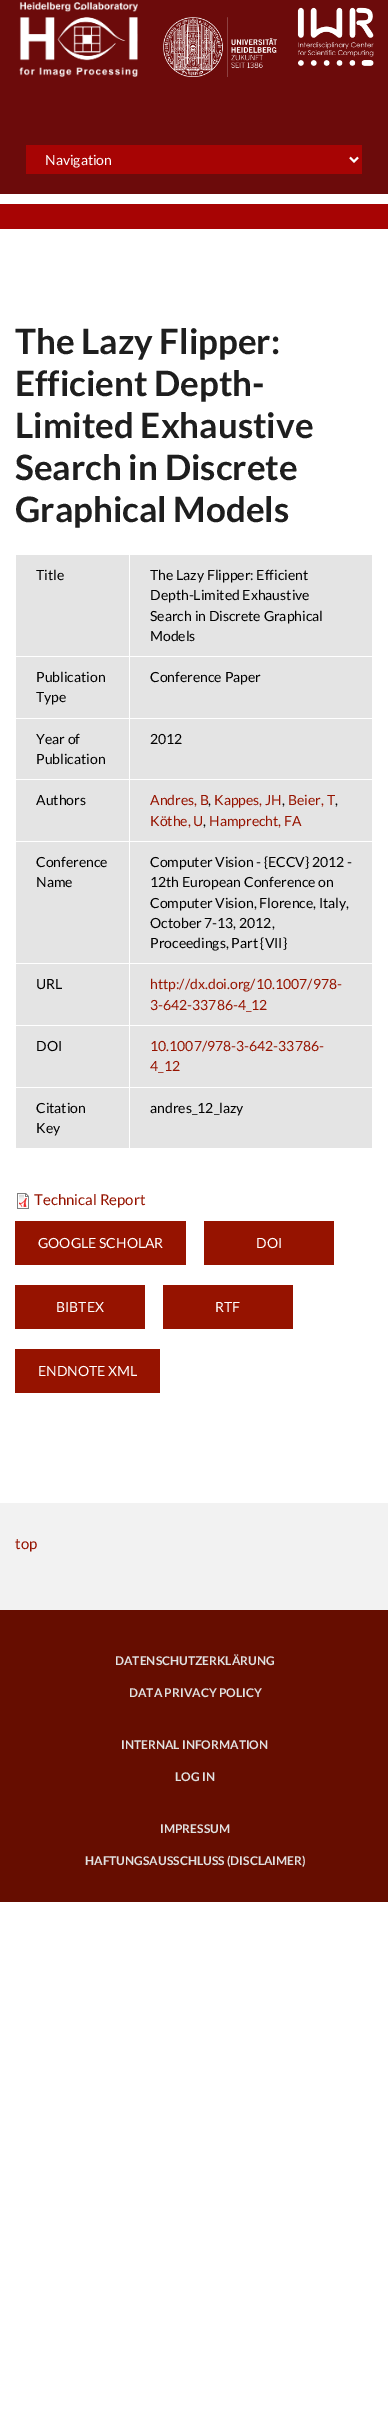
%!PS
<< /PageSize [388 2426] >> setpagedevice
/m/moveto load def
/l/rlineto load def
/s/stroke load def
/w/setlinewidth load def
/C { dup -16 bitshift 255 div exch dup -8 bitshift 255 and 255 div exch 255 and 255 div setrgbcolor } def
/F { [ exch dup neg 0 0 3 -1 roll 0 0 ] selectfont } def
/T { moveto show } def
/R { rectfill } def
/I { 5 dict begin { /h /w /y /x /name } { exch def } forall
  gsave x y translate w h scale
  w h 8 [w 0 0 h 0 0] name (r) file false 3 colorimage grestore end } def
0 2426 translate 1 -1 scale
4 setmiterlimit
16#FFFFFF C
0 0 388 2426 R
16#6C0B0B C
0 0 388 194 R
(1.rgb) 19 2 119 75 I
(2.rgb) 163 17 114 60 I
(3.rgb) 297 7 77 59 I
16#A70404 C
26 145 336 29 R
16#FFFFFF C
2 w
350 157.5 m 4 4 l 4 -4 l s
/Lato-Regular 14 F
(Navigation) 45 165 T
16#A70404 C
0 204 388 25 R
/Lato-Bold 35 F
16#1E1E1E C
(The Lazy Flipper:) 15 354 T
(Efficient Depth-) 15 396 T
(Limited Exhaustive) 15 438 T
(Search in Discrete) 15 480 T
(Graphical Models) 15 522 T
16#E4E4E4 C
16 555 356 101 R
/Lato-Regular 14 F
16#000000 C
(Title) 36 580 T
(The Lazy Flipper: Efficient) 150 580 T
(Depth-Limited Exhaustive) 150 600 T
(Search in Discrete Graphical) 150 621 T
(Models) 150 641 T
16#E4E4E4 C
16 657 356 61 R
16#000000 C
(Publication) 36 682 T
(Type) 36 702 T
(Conference Paper) 150 682 T
16#E4E4E4 C
16 719 356 60 R
16#000000 C
(Year of) 36 744 T
(Publication) 36 764 T
(2012) 150 744 T
16#E4E4E4 C
16 780 356 61 R
16#000000 C
(Authors) 36 805 T
16#961300 C
(Andres, B) 150 805 T
16#000000 C
(,) 208 805 T
16#961300 C
(Kappes, JH) 214 805 T
16#000000 C
(,) 282 805 T
16#961300 C
(Beier, T) 288 805 T
16#000000 C
(,) 335 805 T
16#961300 C
(Köthe, U) 150 826 T
16#000000 C
(,) 203 826 T
16#961300 C
(Hamprecht, FA) 209 826 T
16#E4E4E4 C
16 842 356 121 R
16#000000 C
(Conference) 36 867 T
(Name) 36 887 T
(Computer Vision - {ECCV} 2012 -) 150 867 T
(12th European Conference on) 150 887 T
(Computer Vision, Florence, Italy,) 150 908 T
(October 7-13, 2012,) 150 928 T
(Proceedings, Part {VII}) 150 948 T
16#E4E4E4 C
16 964 356 61 R
16#000000 C
(URL) 36 989 T
16#961300 C
(http://dx.doi.org/10.1007/978-) 150 989 T
(3-642-33786-4_12) 150 1010 T
16#E4E4E4 C
16 1026 356 61 R
16#000000 C
(DOI) 36 1051 T
16#961300 C
(10.1007/978-3-642-33786-) 150 1051 T
(4_12) 150 1071 T
16#E4E4E4 C
16 1088 356 60 R
16#000000 C
(Citation) 36 1113 T
(Key) 36 1133 T
16#FFFFFF C
129 554 1 595 R
16#000000 C
(andres_12_lazy) 150 1113 T
(4.rgb) 17 1193 12 16 I
/Lato-Regular 15 F
16#961300 C
(Technical Report) 34 1205 T
15 1221 171 44 R
/Lato-Regular 14 F
16#FFFFFF C
(GOOGLE SCHOLAR) 38 1248 T
16#961300 C
204 1221 130 44 R
16#FFFFFF C
(DOI) 256 1248 T
16#961300 C
15 1285 130 44 R
16#FFFFFF C
(BIBTEX) 56 1312 T
16#961300 C
163 1285 130 44 R
16#FFFFFF C
(RTF) 215 1312 T
16#961300 C
15 1349 145 44 R
16#FFFFFF C
(ENDNOTE XML) 38 1376 T
16#F2F2F2 C
0 1503 388 107 R
/Lato-Regular 15 F
16#961300 C
(top) 15 1549 T
16#660D00 C
0 1610 388 292 R
/Lato-Bold 12 F
16#E1E1E1 C
(DATENSCHUTZERKLÄRUNG) 115 1665 T
(DATA PRIVACY POLICY) 129 1697 T
(INTERNAL INFORMATION) 121 1749 T
(LOG IN) 175 1781 T
(IMPRESSUM) 160 1833 T
(HAFTUNGSAUSSCHLUSS \(DISCLAIMER\)) 85 1865 T
showpage
